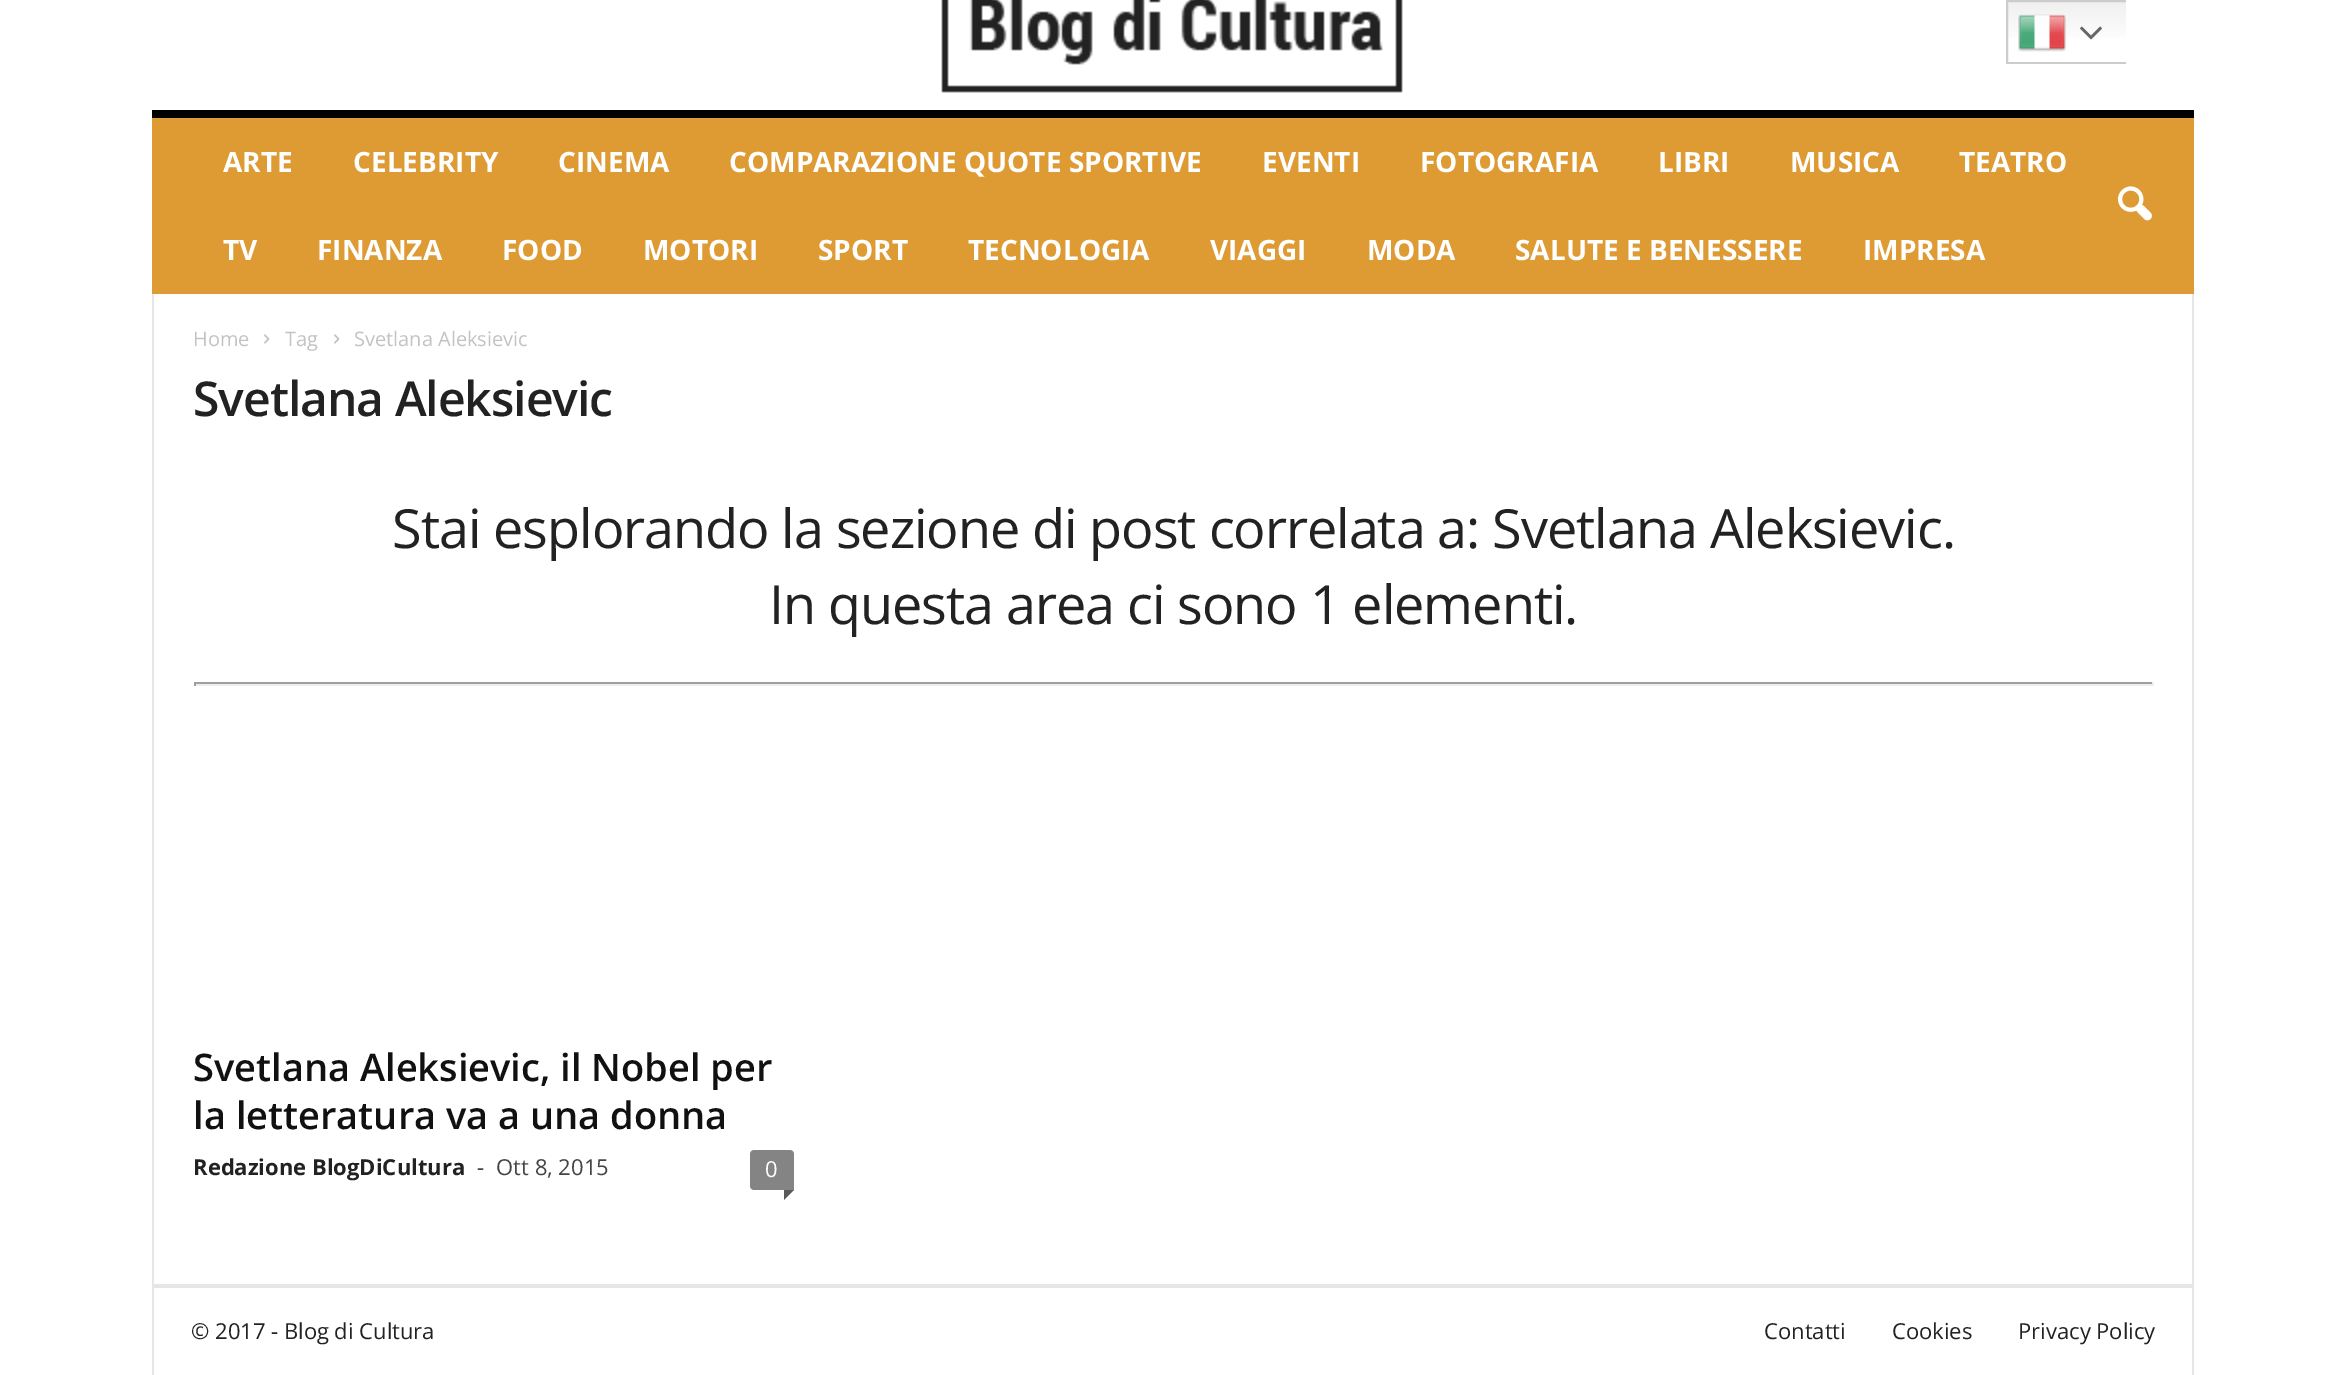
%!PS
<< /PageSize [2344 1375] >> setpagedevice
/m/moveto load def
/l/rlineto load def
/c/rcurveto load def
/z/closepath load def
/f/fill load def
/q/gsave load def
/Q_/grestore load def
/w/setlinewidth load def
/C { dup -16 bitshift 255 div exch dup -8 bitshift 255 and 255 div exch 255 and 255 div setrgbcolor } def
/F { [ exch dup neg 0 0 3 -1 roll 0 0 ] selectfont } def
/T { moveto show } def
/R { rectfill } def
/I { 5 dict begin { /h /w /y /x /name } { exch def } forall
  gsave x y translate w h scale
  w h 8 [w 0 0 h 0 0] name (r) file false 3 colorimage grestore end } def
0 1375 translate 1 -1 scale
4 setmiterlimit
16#FFFFFF C
0 0 2344 1375 R
q 2008 2 m 118 0 l 0 36 l -118 0 l z clip newpath
<< /ShadingType 2 /ColorSpace /DeviceRGB /Coords [2066 0 2066 64] /Extend [true true] /Function << /FunctionType 3 /Domain [0 1] /Functions [<< /FunctionType 2 /Domain [0 1] /C0 [.937 .937 .937] /C1 [1 1 1] /N 1 >> << /FunctionType 2 /Domain [0 1] /C0 [1 1 1] /C1 [1 1 1] /N 1 >>] /Bounds [.7] /Encode [0 1 0 1] >> >> shfill Q_
q
2006 0 120 64 rectclip
16#CCCCCC C
2 w
2007 1 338 62 rectstroke
Q_
(1.rgb) 2018 14 48 38 I
(2.rgb) 2080 26 22 14 I
(3.rgb) 941 0 462 93 I
16#DE9A33 C
152 118 2042 176 R
16#000000 C
152 110 2042 8 R
/OpenSans-Bold 28 F
16#FFFFFF C
(ARTE) 223 172 T
(CELEBRITY) 353 172 T
(CINEMA) 558 172 T
(COMPARAZIONE QUOTE SPORTIVE) 729 172 T
(EVENTI) 1262 172 T
(FOTOGRAFIA) 1420 172 T
(LIBRI) 1658 172 T
(MUSICA) 1790 172 T
(TEATRO) 1959 172 T
(TV) 223 260 T
(FINANZA) 317 260 T
(FOOD) 502 260 T
(MOTORI) 643 260 T
(SPORT) 818 260 T
(TECNOLOGIA) 968 260 T
(VIAGGI) 1210 260 T
(MODA) 1367 260 T
(SALUTE E BENESSERE) 1515 260 T
(IMPRESA) 1863 260 T
(4.rgb) 2118 186 34 35 I
16#E6E6E6 C
152 294 2 990 R
/OpenSans-Regular 20 F
16#C3C3C3 C
(Home) 193 346 T
(5.rgb) 264 334 6 10 I
(Tag) 285 346 T
(5.rgb) 334 334 6 10 I
(Svetlana Aleksievic) 354 346 T
/OpenSans-SemiBold 48 F
16#222222 C
193 416 m -1 0 (Svetlana Aleksievic) ashow
/OpenSans-Regular 54 F
392 548 m -1.08 0 (Stai esplorando la sezione di post correlata a: Svetlana Aleksievic.) ashow
769 624 m -1.08 0 (In questa area ci sono 1 elementi.) ashow
16#9F9F9F C
194 682 1960 2 R
16#EEEEEE C
2152 682 2 4 R
194 684 1960 2 R
16#9F9F9F C
194 682 2 4 R
/OpenSans-SemiBold 38 F
16#111111 C
(Svetlana Aleksievic, il Nobel per) 193 1081 T
(la letteratura va a una donna) 193 1129 T
/OpenSans-Bold 22 F
16#222222 C
(Redazione BlogDiCultura) 193 1175 T
/OpenSans-Regular 22 F
16#444444 C
(-) 477 1175 T
(Ott 8, 2015) 496 1175 T
16#848484 C
754 1150 m 36 0 l 2 0 4 2 4 4 c 0 36 l -40 0 l -2 0 -4 -2 -4 -4 c 0 -32 l 0 -2 2 -4 4 -4 c z f
16#FFFFFF C
(0) 765 1177 T
16#5B5B5B C
784 1190 m 10 0 l -10 10 l z f
16#E6E6E6 C
2192 294 2 990 R
152 1284 2042 4 R
152 1288 2 87 R
16#222222 C
(© 2017 - Blog di Cultura) 191 1339 T
(Contatti) 1764 1339 T
(Cookies) 1892 1339 T
(Privacy Policy) 2018 1339 T
16#E6E6E6 C
2192 1288 2 87 R
showpage
